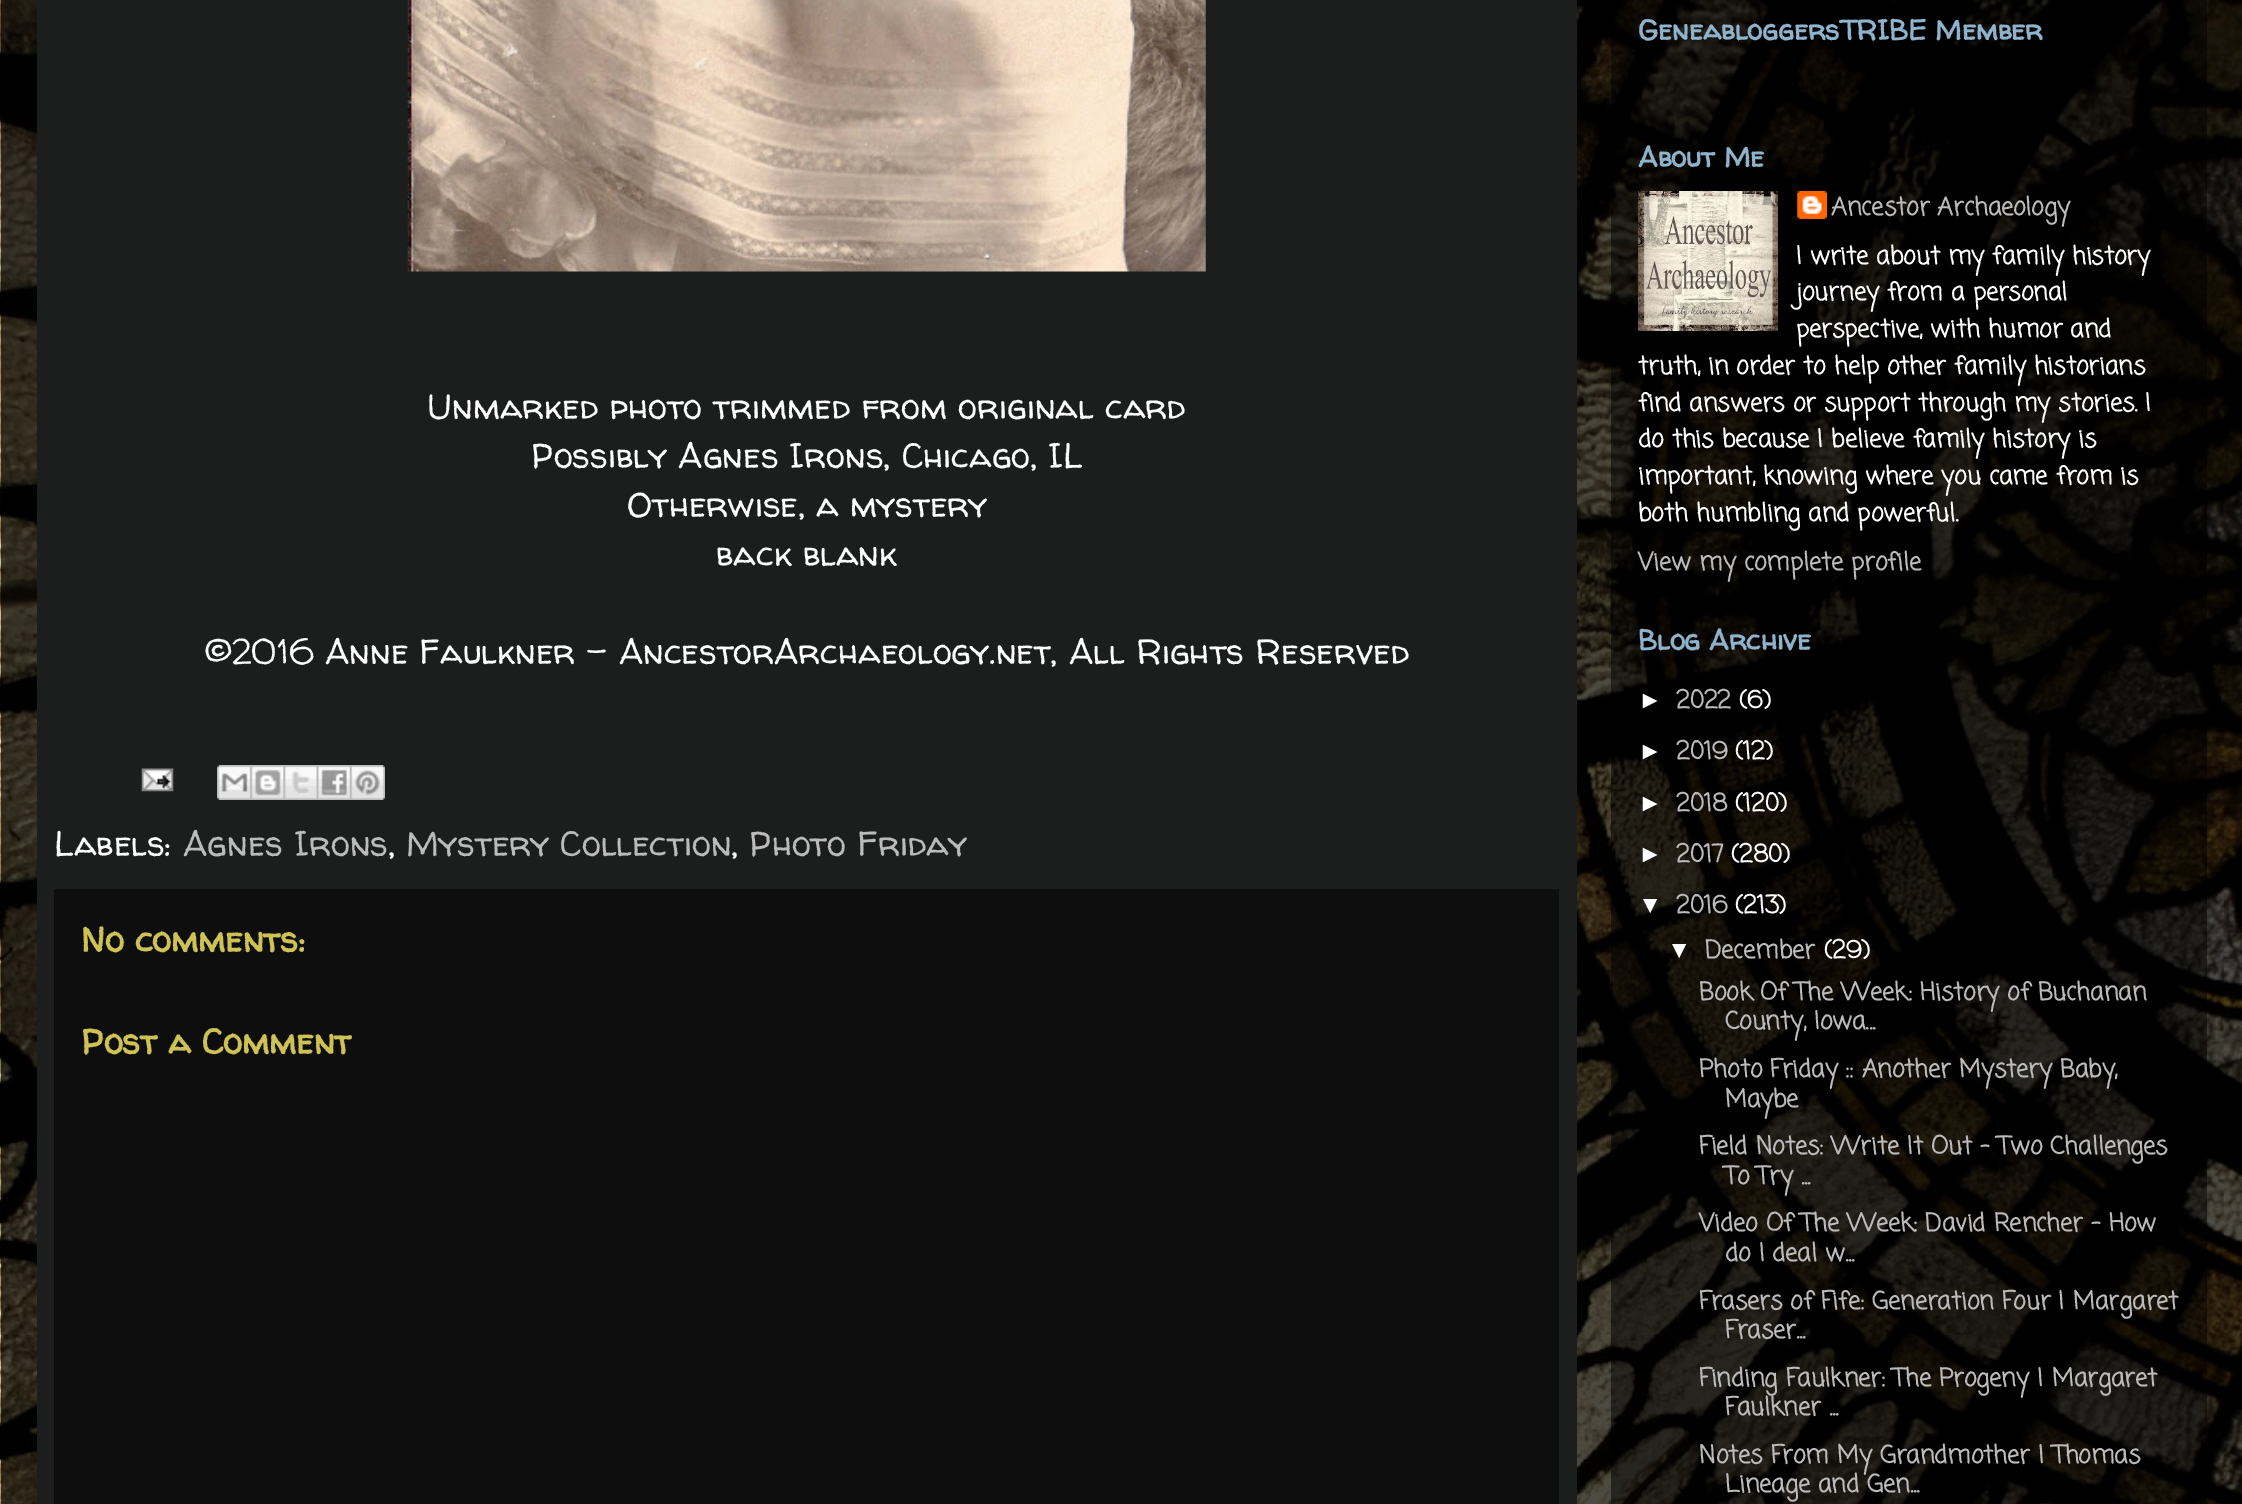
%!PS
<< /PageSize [2242 1504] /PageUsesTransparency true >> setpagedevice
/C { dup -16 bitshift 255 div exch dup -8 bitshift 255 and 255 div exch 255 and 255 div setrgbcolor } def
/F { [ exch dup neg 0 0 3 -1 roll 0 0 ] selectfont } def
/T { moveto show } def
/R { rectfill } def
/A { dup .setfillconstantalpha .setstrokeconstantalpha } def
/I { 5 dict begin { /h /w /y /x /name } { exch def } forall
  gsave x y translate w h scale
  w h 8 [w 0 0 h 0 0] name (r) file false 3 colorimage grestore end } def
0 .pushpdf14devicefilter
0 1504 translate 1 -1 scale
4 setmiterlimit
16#FFFFFF C
0 0 2242 1504 R
(1.rgb) 0 0 2242 1504 I
0.5 A
16#000000 C
1611 0 596 1504 R
1 A
16#1C1D1D C
37 0 1540 1504 R
(2.rgb) 407 0 799 272 I
/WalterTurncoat-Regular 35 F
16#FFFFFF C
(Unmarked photo trimmed from original card) 427 419 T
(Possibly Agnes Irons, Chicago, IL) 531 468 T
(Otherwise, a mystery) 627 517 T
(back blank) 716 566 T
(©2016 Anne Faulkner - AncestorArchaeology.net, All Rights Reserved) 205 664 T
(3.rgb) 141 768 33 24 I
(4.rgb) 217 765 34 35 I
(5.rgb) 250 765 34 35 I
(6.rgb) 283 765 34 35 I
(7.rgb) 316 765 34 35 I
(8.rgb) 350 765 35 35 I
(Labels:) 54 856 T
16#BBBBBB C
(Agnes Irons) 183 856 T
16#FFFFFF C
(,) 388 856 T
16#BBBBBB C
(Mystery Collection) 406 856 T
16#FFFFFF C
(,) 731 856 T
16#BBBBBB C
(Photo Friday) 749 856 T
16#0E0E0E C
54 889 1505 615 R
/WalterTurncoat-Bold 35 F
16#CDC253 C
(No comments:) 81 952 T
(Post a Comment) 81 1054 T
/WalterTurncoat-Bold 28 F
16#90B3CD C
(GeneabloggersTRIBE Member) 1638 40 T
(About Me) 1638 167 T
(9.rgb) 1638 191 140 140 I
(10.rgb) 1797 191 30 28 I
/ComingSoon-Bold 24.5 F
16#BBBBBB C
(Ancestor Archaeology) 1831 215 T
16#FFFFFF C
(I write about my family history) 1796 264 T
(journey from a personal) 1796 300 T
(perspective, with humor and) 1796 337 T
(truth, in order to help other family historians) 1638 374 T
(find answers or support through my stories. I) 1638 411 T
(do this because I believe family history is) 1638 447 T
(important, knowing where you came from is) 1638 484 T
(both humbling and powerful.) 1638 521 T
16#BBBBBB C
(View my complete profile) 1638 570 T
/WalterTurncoat-Bold 28 F
16#90B3CD C
(Blog Archive) 1638 650 T
/LiberationSans-Bold 24.5 F
16#FFFFFF C
(►) 1638 708 T
/ComingSoon-Bold 24.5 F
16#BBBBBB C
(2022) 1676 708 T
16#FFFFFF C
(\(6\)) 1739 708 T
/LiberationSans-Bold 24.5 F
(►) 1638 759 T
/ComingSoon-Bold 24.5 F
16#BBBBBB C
(2019) 1676 759 T
16#FFFFFF C
(\(12\)) 1735 759 T
/LiberationSans-Bold 24.5 F
(►) 1638 811 T
/ComingSoon-Bold 24.5 F
16#BBBBBB C
(2018) 1676 811 T
16#FFFFFF C
(\(120\)) 1735 811 T
/LiberationSans-Bold 24.5 F
(►) 1638 862 T
/ComingSoon-Bold 24.5 F
16#BBBBBB C
(2017) 1676 862 T
16#FFFFFF C
(\(280\)) 1731 862 T
/LiberationSans-Bold 24.5 F
(▼) 1638 913 T
/ComingSoon-Bold 24.5 F
16#BBBBBB C
(2016) 1676 913 T
16#FFFFFF C
(\(213\)) 1735 913 T
/LiberationSans-Bold 24.5 F
(▼) 1667 958 T
/ComingSoon-Bold 24.5 F
16#BBBBBB C
(December) 1705 958 T
16#FFFFFF C
(\(29\)) 1824 958 T
16#BBBBBB C
(Book Of The Week: History of Buchanan) 1699 1000 T
(County, Iowa...) 1725 1029 T
(Photo Friday :: Another Mystery Baby,) 1699 1077 T
(Maybe) 1725 1107 T
(Field Notes: Write It Out - Two Challenges) 1699 1154 T
(To Try ...) 1725 1184 T
(Video Of The Week: David Rencher - How) 1699 1231 T
(do I deal w...) 1725 1261 T
(Frasers of Fife: Generation Four | Margaret) 1699 1309 T
(Fraser...) 1725 1338 T
(Finding Faulkner: The Progeny | Margaret) 1699 1386 T
(Faulkner ...) 1725 1415 T
(Notes From My Grandmother | Thomas) 1699 1463 T
(Lineage and Gen...) 1725 1492 T
.poppdf14devicefilter showpage
